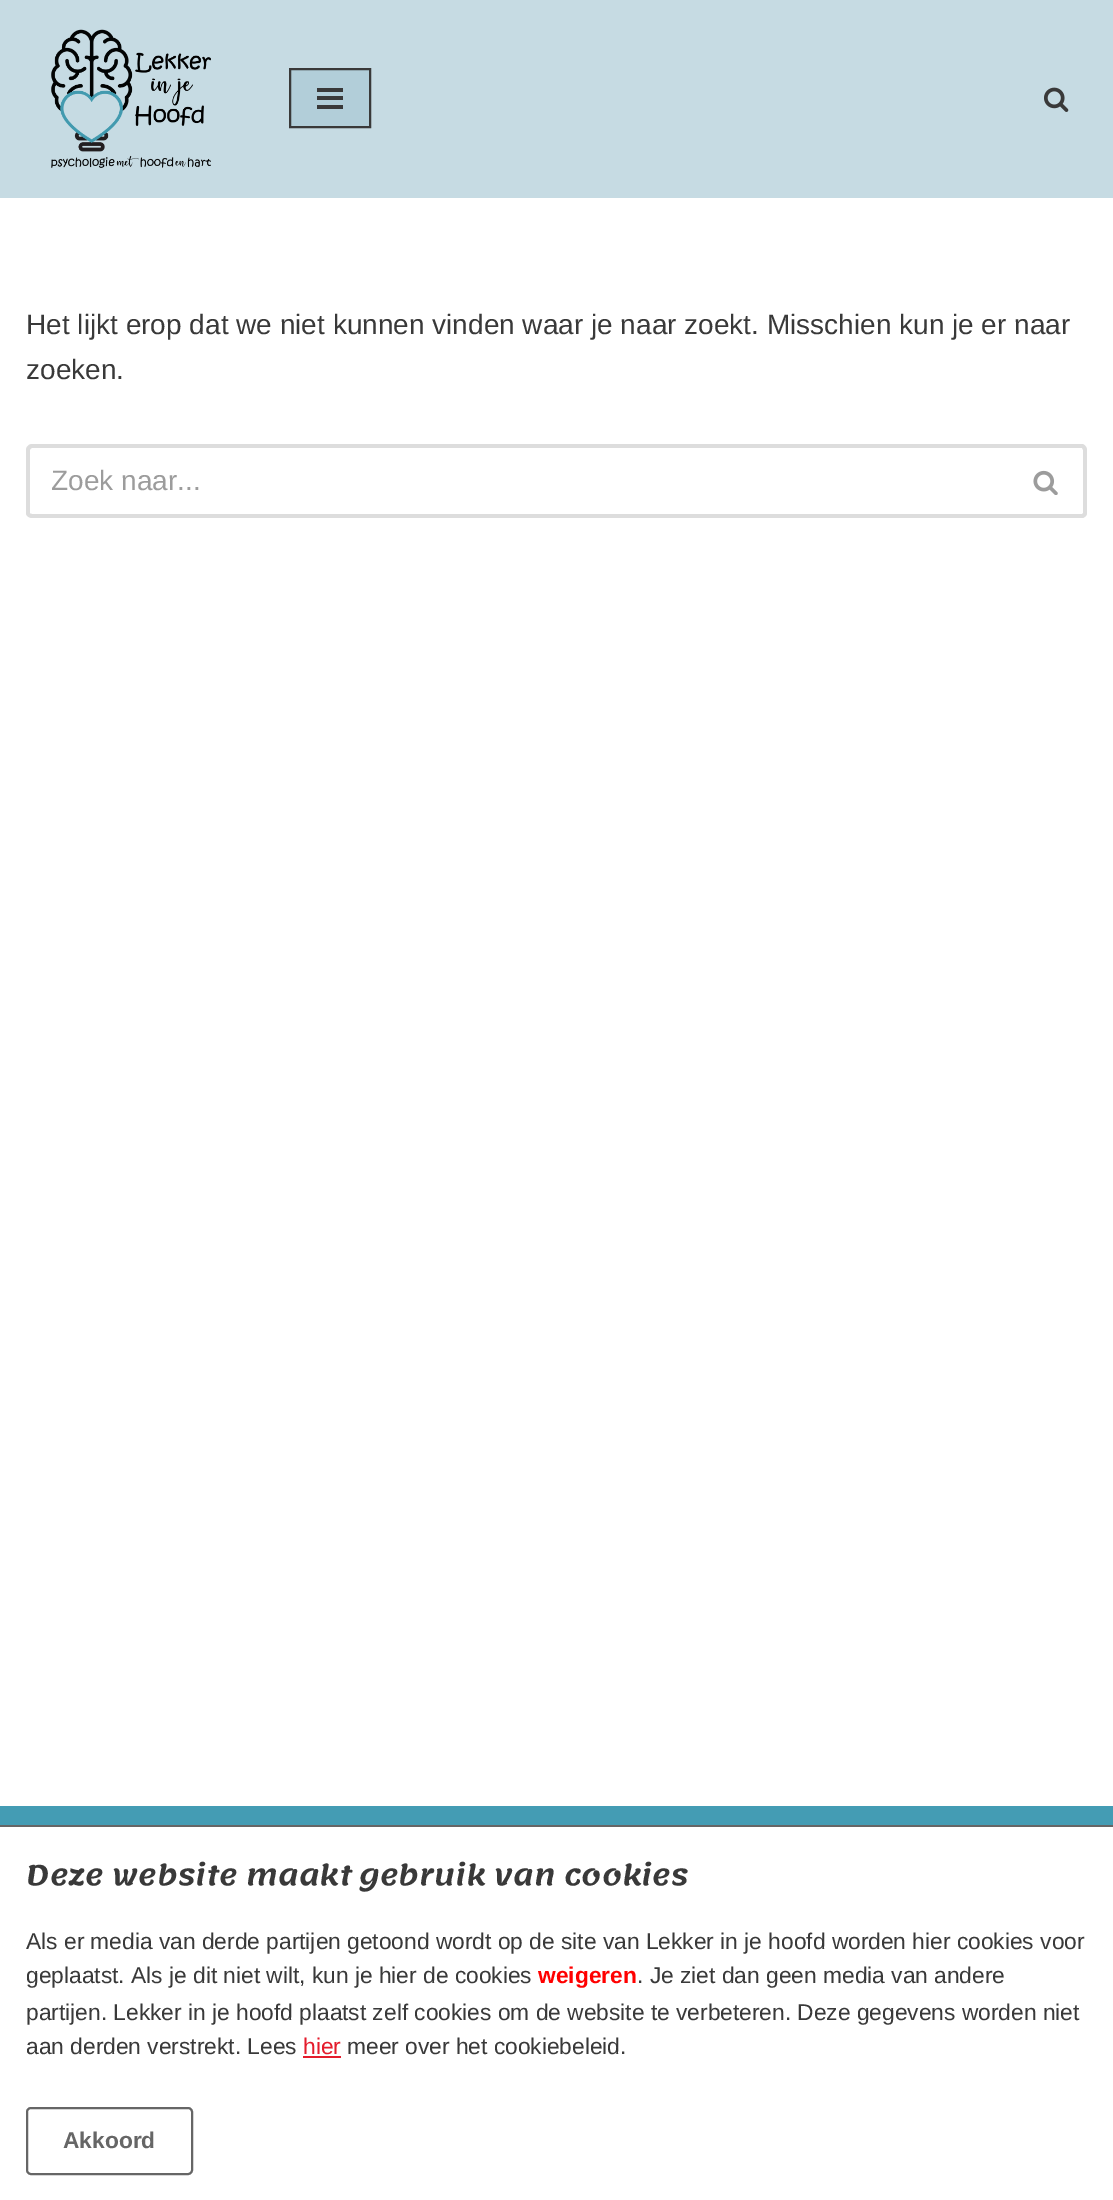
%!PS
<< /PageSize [1113 2200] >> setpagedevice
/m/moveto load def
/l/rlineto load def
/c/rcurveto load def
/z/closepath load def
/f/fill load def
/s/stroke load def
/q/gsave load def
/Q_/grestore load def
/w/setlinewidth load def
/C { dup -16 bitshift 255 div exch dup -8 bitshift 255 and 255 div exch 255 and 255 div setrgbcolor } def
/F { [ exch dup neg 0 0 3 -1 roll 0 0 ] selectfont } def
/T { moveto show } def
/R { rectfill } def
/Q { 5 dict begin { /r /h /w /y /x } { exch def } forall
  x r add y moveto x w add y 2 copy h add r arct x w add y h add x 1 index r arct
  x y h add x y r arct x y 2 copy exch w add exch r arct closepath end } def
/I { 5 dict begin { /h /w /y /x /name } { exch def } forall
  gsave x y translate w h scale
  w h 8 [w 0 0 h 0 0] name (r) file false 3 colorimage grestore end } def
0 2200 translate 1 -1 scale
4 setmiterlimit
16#FFFFFF C
0 0 1113 2200 R
16#C6DBE3 C
0 0 1113 198 R
(1.rgb) 51 29 160 139 I
16#B2CED9 C
290 69 m 80 0 l 0 58 l -80 0 l z q f Q_
16#393939 C
2 w
s
317 88 26 4 R
317 96 26 4 R
317 105 26 4 R
(2.rgb) 1044 87 25 25 I
/LiberationSans-Regular 28 F
(Het lijkt erop dat we niet kunnen vinden waar je naar zoekt. Misschien kun je er naar) 26 334 T
(zoeken.) 26 379 T
16#DDDDDD C
32 444 m 976 0 l 0 74 l -976 0 l -3 0 -6 -2 -6 -5 c 0 -63 l 0 -3 3 -6 6 -6 c z 32 448 m 976 0 l 0 66 l -976 0 l -1 0 -2 0 -2 -1 c 0 -63 l 0 -1 1 -2 2 -2 c z eofill
16#9C9C9C C
(Zoek naar...) 51 490 T
16#DDDDDD C
1008 444 m 74 0 l 2 0 5 3 5 6 c 0 63 l 0 3 -3 5 -5 5 c -74 0 l z 1008 448 m 74 0 l 0 0 1 1 1 2 c 0 63 l 0 1 -1 1 -1 1 c -74 0 l z eofill
(3.rgb) 1033 470 25 25 I
16#449CB4 C
0 1806 1113 19 R
16#666666 C
0 1825 1113 2 R
/Lemonada-SemiBold 28 F
16#393939 C
(Deze website maakt gebruik van cookies) 26 1885 T
/LiberationSans-Regular 22.75 F
(Als er media van derde partijen getoond wordt op de site van Lekker in je hoofd worden hier cookies voor) 26 1949 T
(geplaatst. Als je dit niet wilt, kun je hier de cookies) 26 1983 T
/LiberationSans-Bold 22.75 F
16#FF0000 C
(weigeren) 538 1983 T
/LiberationSans-Regular 22.75 F
16#393939 C
(. Je ziet dan geen media van andere) 637 1983 T
(partijen. Lekker in je hoofd plaatst zelf cookies om de website te verbeteren. Deze gegevens worden niet) 26 2020 T
(aan derden verstrekt. Lees) 26 2054 T
16#E41C2C C
(hier) 303 2054 T
303 2056 38 2 R
16#393939 C
(meer over het cookiebeleid.) 347 2054 T
16#666666 C
27 2108 165 66 4 Q s
/LiberationSans-Bold 22.75 F
(Akkoord) 63 2148 T
showpage
